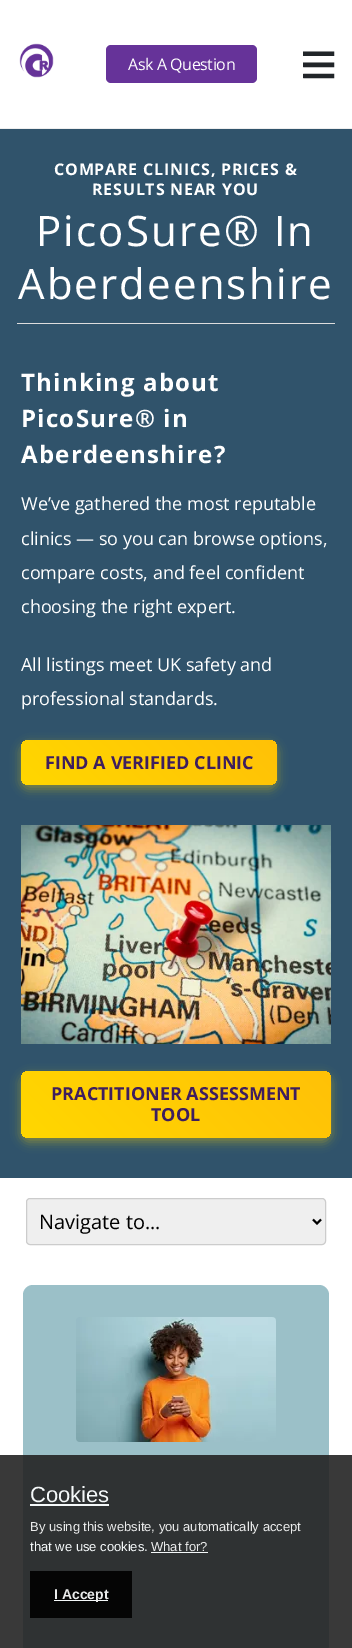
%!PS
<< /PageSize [352 1648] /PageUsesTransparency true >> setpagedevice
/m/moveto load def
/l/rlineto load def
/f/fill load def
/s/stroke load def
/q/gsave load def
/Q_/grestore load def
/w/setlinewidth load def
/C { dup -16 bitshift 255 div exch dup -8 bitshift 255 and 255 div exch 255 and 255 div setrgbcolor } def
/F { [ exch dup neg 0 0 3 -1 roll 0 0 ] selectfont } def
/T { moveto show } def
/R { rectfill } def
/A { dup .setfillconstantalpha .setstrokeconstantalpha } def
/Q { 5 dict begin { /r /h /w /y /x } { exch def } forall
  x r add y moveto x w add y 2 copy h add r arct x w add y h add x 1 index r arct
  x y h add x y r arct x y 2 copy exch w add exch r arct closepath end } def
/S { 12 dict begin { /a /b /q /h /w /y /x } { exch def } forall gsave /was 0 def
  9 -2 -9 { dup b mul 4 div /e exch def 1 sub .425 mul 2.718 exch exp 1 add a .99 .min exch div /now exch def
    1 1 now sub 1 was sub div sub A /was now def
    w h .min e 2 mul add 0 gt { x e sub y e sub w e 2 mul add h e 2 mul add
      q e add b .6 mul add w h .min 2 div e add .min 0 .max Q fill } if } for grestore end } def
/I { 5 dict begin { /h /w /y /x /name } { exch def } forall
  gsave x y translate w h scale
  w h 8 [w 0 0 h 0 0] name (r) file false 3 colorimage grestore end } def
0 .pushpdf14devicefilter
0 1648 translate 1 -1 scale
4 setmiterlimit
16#FFFFFF C
0 0 352 1648 R
16#EEEEEE C
0 128 352 1 R
(1.rgb) 19 43 35 35 I
16#663399 C
106 45 151 38 5 Q f
/OpenSans-Regular 16 F
16#FFFFFF C
128 70 m -.4 0 (Ask A Question) ashow
/LiberationSans-Regular 64 F
16#212529 C
(≡) 300 86 T
16#30536B C
0 129 352 1049 R
/OpenSans-Bold 16 F
16#FFFFFF C
54 175 m .8 0 (COMPARE CLINICS, PRICES &) ashow
92 195 m .8 0 (RESULTS NEAR YOU) ashow
/OpenSans-Regular 42 F
36 246 m 2.1 0 (PicoSure® In) ashow
18 299 m 2.1 0 (Aberdeenshire) ashow
16#DDDDDD C
17 323 318 1 R
/OpenSans-Bold 24 F
16#FFFFFF C
21 391 m 1.25 0 (Thinking about) ashow
21 427 m 1.25 0 (PicoSure® in) ashow
21 463 m 1.25 0 (Aberdeenshire?) ashow
/OpenSans-Regular 18 F
(We’ve gathered the most reputable) 21 510 T
(clinics — so you can browse options,) 21 545 T
(compare costs, and feel confident) 21 579 T
(choosing the right expert.) 21 613 T
(All listings meet UK safety and) 21 671 T
(professional standards.) 21 705 T
16#FFD700 C
21 744 256 45 8 5 .4 S
q 21 740 256 45 8 Q clip newpath
<< /ShadingType 2 /ColorSpace /DeviceRGB /Coords [74 838 224 687] /Extend [true true] /Function << /FunctionType 2 /Domain [0 1] /C0 [1 .843 0] /C1 [1 .757 .027] /N 1 >> >> shfill Q_
/OpenSans-Bold 18 F
16#3E1E5E C
(FIND A VERIFIED CLINIC) 45 769 T
(2.rgb) 21 825 310 219 I
16#FFD700 C
21 1075 310 67 8 5 .4 S
q 21 1071 310 67 8 Q clip newpath
<< /ShadingType 2 /ColorSpace /DeviceRGB /Coords [82 1199 270 1010] /Extend [true true] /Function << /FunctionType 2 /Domain [0 1] /C0 [1 .843 0] /C1 [1 .757 .027] /N 1 >> >> shfill Q_
16#3E1E5E C
(PRACTITIONER ASSESSMENT) 51 1100 T
(TOOL) 151 1121 T
16#EFEFEF C
26.5 1198.5 299 46 3.5 Q q f Q_
16#CCCCCC C
s
16#000000 C
2 w
313 1219.5 m 4 4 l 4 -4 l s
/OpenSans-Regular 20 F
(Navigate to...) 39 1229 T
16#9BC0C8 C
23 1285 306 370 10 Q f
(3.rgb) 76 1317 200 125 I
0.9 A
16#232323 C
0 1455 352 193 R
/LiberationSans-Regular 22 F
1 A
16#F5F9FA C
(Cookies) 30 1502 T
30 1504 79 2 R
/LiberationSans-Regular 13 F
16#EAEBEB C
(By using this website, you automatically accept) 30 1531 T
16#F5F9FA C
(that we use cookies.) 30 1551 T
16#EAEBEB C
(What for?) 151 1551 T
16#F5F9FA C
151 1552 57 1 R
0.9 A
16#000000 C
30 1571 102 47 R
1 A
16#F5F9FA C
54 1600 54 1 R
/LiberationSans-Bold 14 F
16#EAEBEB C
(I Accept) 54 1599 T
.poppdf14devicefilter showpage
